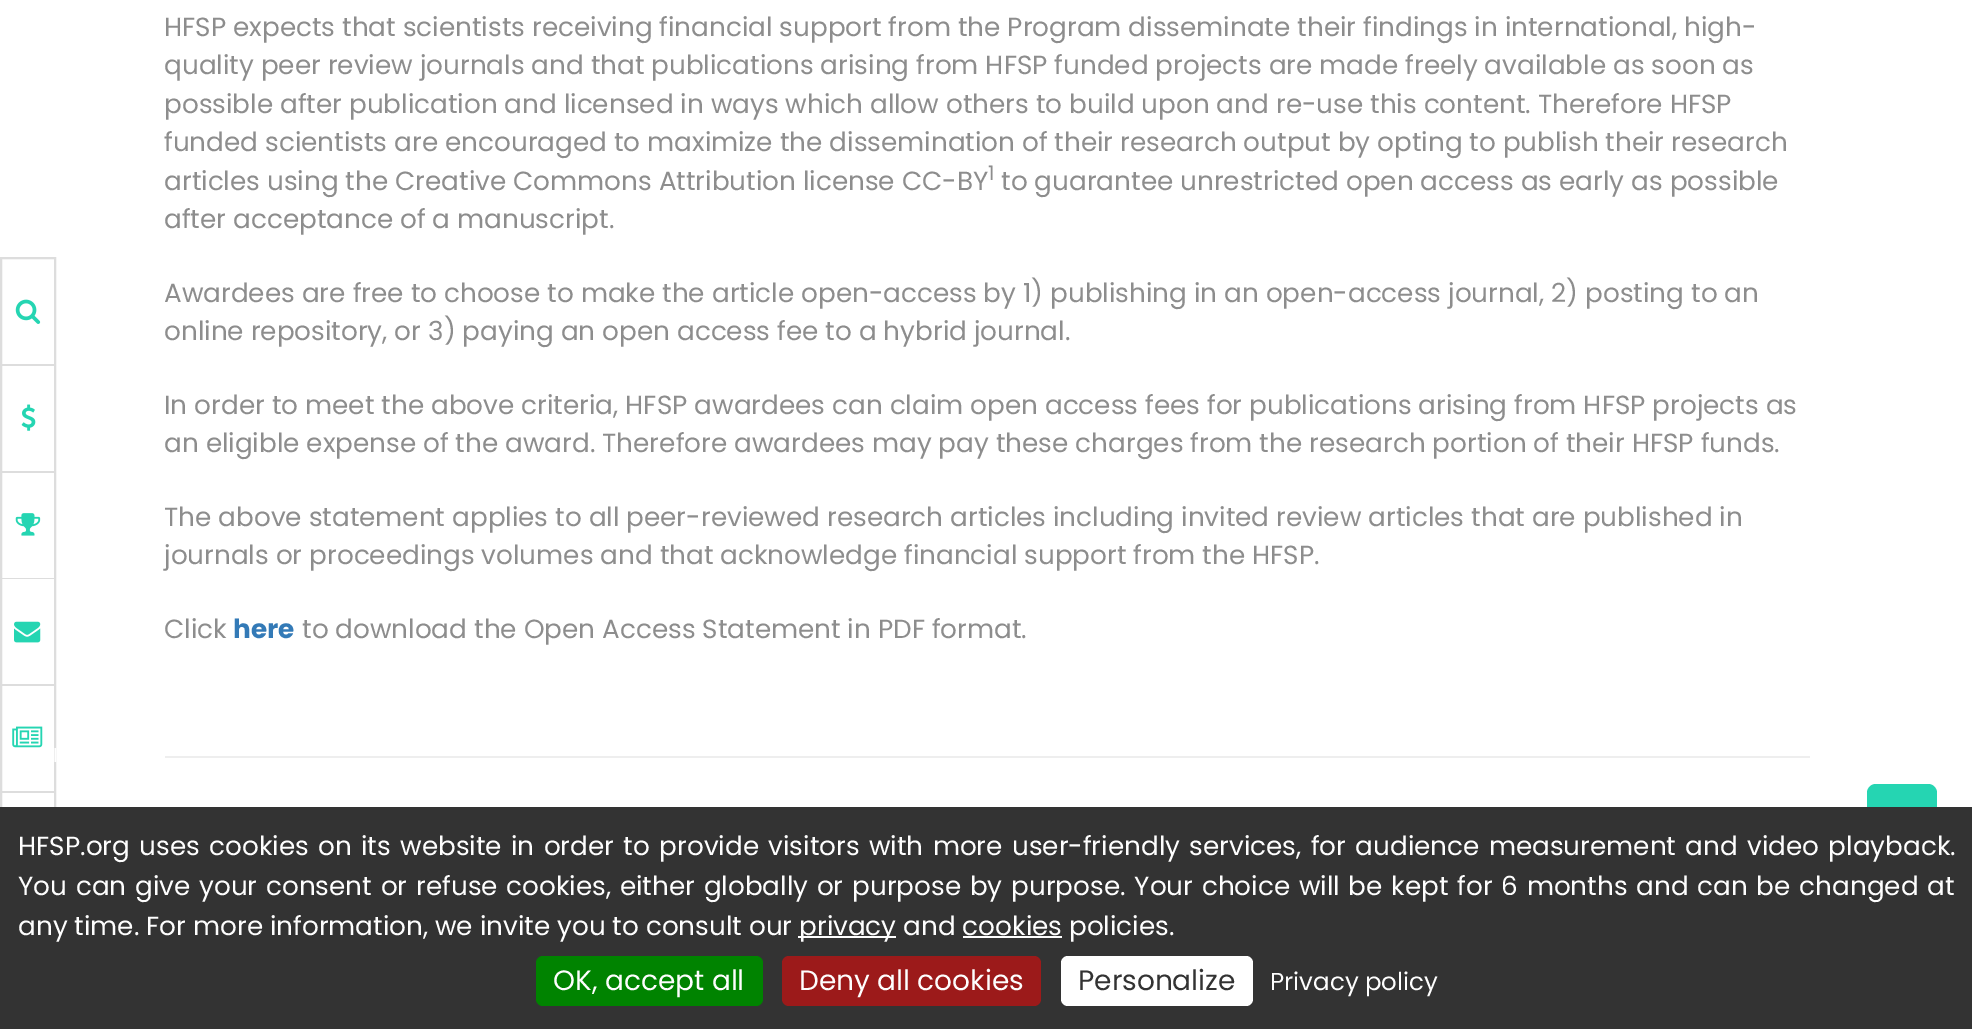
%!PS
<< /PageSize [1972 1029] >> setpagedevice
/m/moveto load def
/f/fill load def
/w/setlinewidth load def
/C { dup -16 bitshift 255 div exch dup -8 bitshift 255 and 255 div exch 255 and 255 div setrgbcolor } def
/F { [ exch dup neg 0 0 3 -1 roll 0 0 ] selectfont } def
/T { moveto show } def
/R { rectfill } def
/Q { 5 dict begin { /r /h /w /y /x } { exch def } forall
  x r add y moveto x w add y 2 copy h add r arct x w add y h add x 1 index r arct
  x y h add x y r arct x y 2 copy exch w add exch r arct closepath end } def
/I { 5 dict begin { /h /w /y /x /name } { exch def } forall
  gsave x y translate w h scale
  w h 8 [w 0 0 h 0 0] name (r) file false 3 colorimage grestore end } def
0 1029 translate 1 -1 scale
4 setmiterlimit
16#FFFFFF C
0 0 1972 1029 R
/Poppins-Regular 26.25 F
16#8D8D8D C
(HFSP expects that scientists receiving financial support from the Program disseminate their findings in international, high-) 164 36 T
(quality peer review journals and that publications arising from HFSP funded projects are made freely available as soon as) 164 74 T
(possible after publication and licensed in ways which allow others to build upon and re-use this content. Therefore HFSP) 164 113 T
(funded scientists are encouraged to maximize the dissemination of their research output by opting to publish their research) 164 151 T
(articles using the Creative Commons Attribution license CC-BY) 164 190 T
/Poppins-Regular 20 F
(1) 988 180 T
/Poppins-Regular 26.25 F
(to guarantee unrestricted open access as early as possible) 1001 190 T
(after acceptance of a manuscript.) 164 228 T
(Awardees are free to choose to make the article open-access by 1\) publishing in an open-access journal, 2\) posting to an) 164 302 T
(online repository, or 3\) paying an open access fee to a hybrid journal.) 164 340 T
(In order to meet the above criteria, HFSP awardees can claim open access fees for publications arising from HFSP projects as) 164 414 T
(an eligible expense of the award. Therefore awardees may pay these charges from the research portion of their HFSP funds.) 164 452 T
(The above statement applies to all peer-reviewed research articles including invited review articles that are published in) 164 526 T
(journals or proceedings volumes and that acknowledge financial support from the HFSP.) 164 564 T
(Click) 164 638 T
/Poppins-Bold 26.25 F
16#337AB7 C
(here) 233 638 T
/Poppins-Regular 26.25 F
16#8D8D8D C
(to download the Open Access Statement in PDF format.) 302 638 T
16#EEEEEE C
165 756 1645 2 R
16#DDDDDD C
2 w
1 258 54 641 rectstroke
2 364 52 2 R
(1.rgb) 15 299 26 25 I
2 471 52 2 R
(2.rgb) 21 404 15 27 I
2 578 52 1 R
(3.rgb) 15 513 26 23 I
2 684 52 2 R
(4.rgb) 14 621 27 22 I
2 791 52 2 R
(5.rgb) 12 726 31 22 I
/Poppins-Regular 19 F
16#FEFEFE C
(l) 53 762 T
16#25D5B2 C
1867 784 70 70 9 Q f
16#333333 C
0 807 1972 222 R
/Poppins-Regular 26.25 F
16#FEFEFE C
18 855 m 2.4 0 32 (HFSP.org uses cookies on its website in order to provide visitors with more user-friendly services, for audience measurement and video playback.) widthshow
18 895 m 1.8 0 32 (You can give your consent or refuse cookies, either globally or purpose by purpose. Your choice will be kept for 6 months and can be changed at) widthshow
(any time. For more information, we invite you to consult our) 18 935 T
16#FFFFFF C
798 936 98 2 R
16#FEFEFE C
(privacy and cookies policies.) 799 935 T
16#FFFFFF C
963 936 99 2 R
16#008300 C
536 956 227 50 7 Q f
/Poppins-Regular 28 F
16#FEFEFE C
(OK, accept all) 553 990 T
16#9C1A1A C
782 956 259 50 7 Q f
16#FEFEFE C
(Deny all cookies) 799 990 T
16#FFFFFF C
1061 956 192 50 7 Q f
16#333333 C
(Personalize) 1078 990 T
/Poppins-Regular 24.5 F
16#FEFEFE C
(Privacy policy) 1270 990 T
showpage
